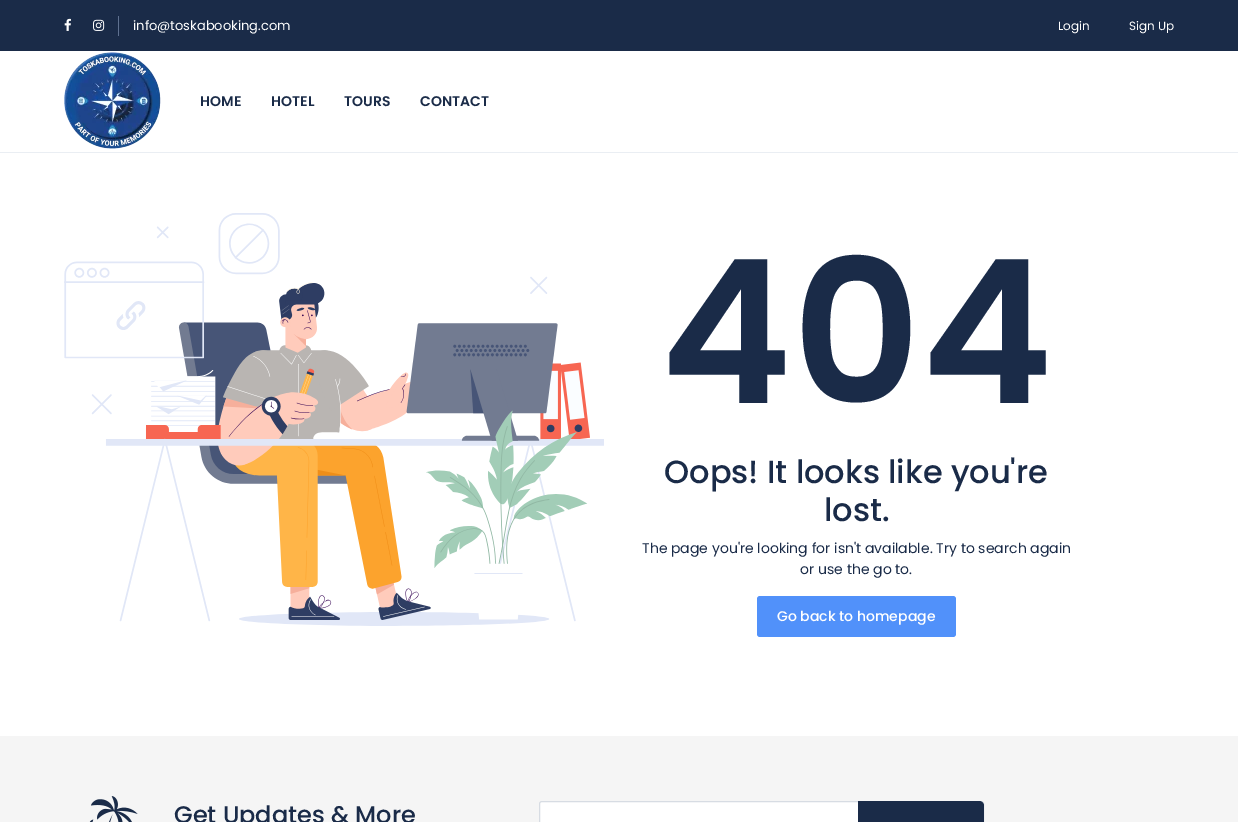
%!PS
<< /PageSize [1238 822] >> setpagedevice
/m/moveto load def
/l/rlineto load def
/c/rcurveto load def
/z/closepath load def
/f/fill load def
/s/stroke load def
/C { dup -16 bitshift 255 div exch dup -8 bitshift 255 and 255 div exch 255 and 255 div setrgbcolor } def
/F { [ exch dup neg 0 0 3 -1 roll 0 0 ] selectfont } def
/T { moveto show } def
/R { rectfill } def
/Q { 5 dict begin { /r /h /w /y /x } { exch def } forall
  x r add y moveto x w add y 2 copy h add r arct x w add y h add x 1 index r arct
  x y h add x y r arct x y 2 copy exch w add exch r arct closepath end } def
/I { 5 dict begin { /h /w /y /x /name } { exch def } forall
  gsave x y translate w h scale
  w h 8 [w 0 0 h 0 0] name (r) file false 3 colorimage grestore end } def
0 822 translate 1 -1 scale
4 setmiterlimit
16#FFFFFF C
0 0 1238 822 R
16#1A2B48 C
0 0 1238 51 R
(1.rgb) 64 18 7 13 I
(2.rgb) 93 19 12 12 I
16#5F7190 C
118 16 1 20 R
/Poppins-Regular 13 F
16#FFFFFF C
(info@toskabooking.com) 133 30 T
/Poppins-Regular 12 F
(Login) 1058 30 T
(Sign Up) 1129 30 T
16#EAEEF3 C
0 152 1238 1 R
(3.rgb) 64 52 97 97 I
/Poppins-SemiBold 14 F
16#1A2B48 C
(HOME) 200 106 T
(HOTEL) 271 106 T
(TOURS) 344 106 T
(CONTACT) 420 106 T
(4.rgb) 64 213 540 413 I
/Poppins-SemiBold 200 F
(404) 660 403 T
/Poppins-Medium 32 F
(Oops! It looks like you're) 664 483 T
(lost.) 824 521 T
/Poppins-Regular 14 F
(The page you're looking for isn't available. Try to search again) 642 553 T
(or use the go to.) 800 574 T
16#5191FA C
757 596 199 41 3 Q f
/Poppins-Medium 14 F
16#FFFFFF C
(Go back to homepage) 777 621 T
16#F5F5F5 C
0 736 1238 86 R
(5.rgb) 89 796 49 26 I
/Poppins-Medium 24 F
16#1A2B48 C
(Get Updates & More) 174 823 T
16#FFFFFF C
540 802 443 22 2 Q f
16#D7DCE3 C
539.5 801.5 444 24 2.5 Q s
16#1A2B48 C
858 801 m 121 0 l 3 0 5 2 5 5 c 0 16 l 0 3 -2 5 -5 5 c -121 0 l z f
showpage
